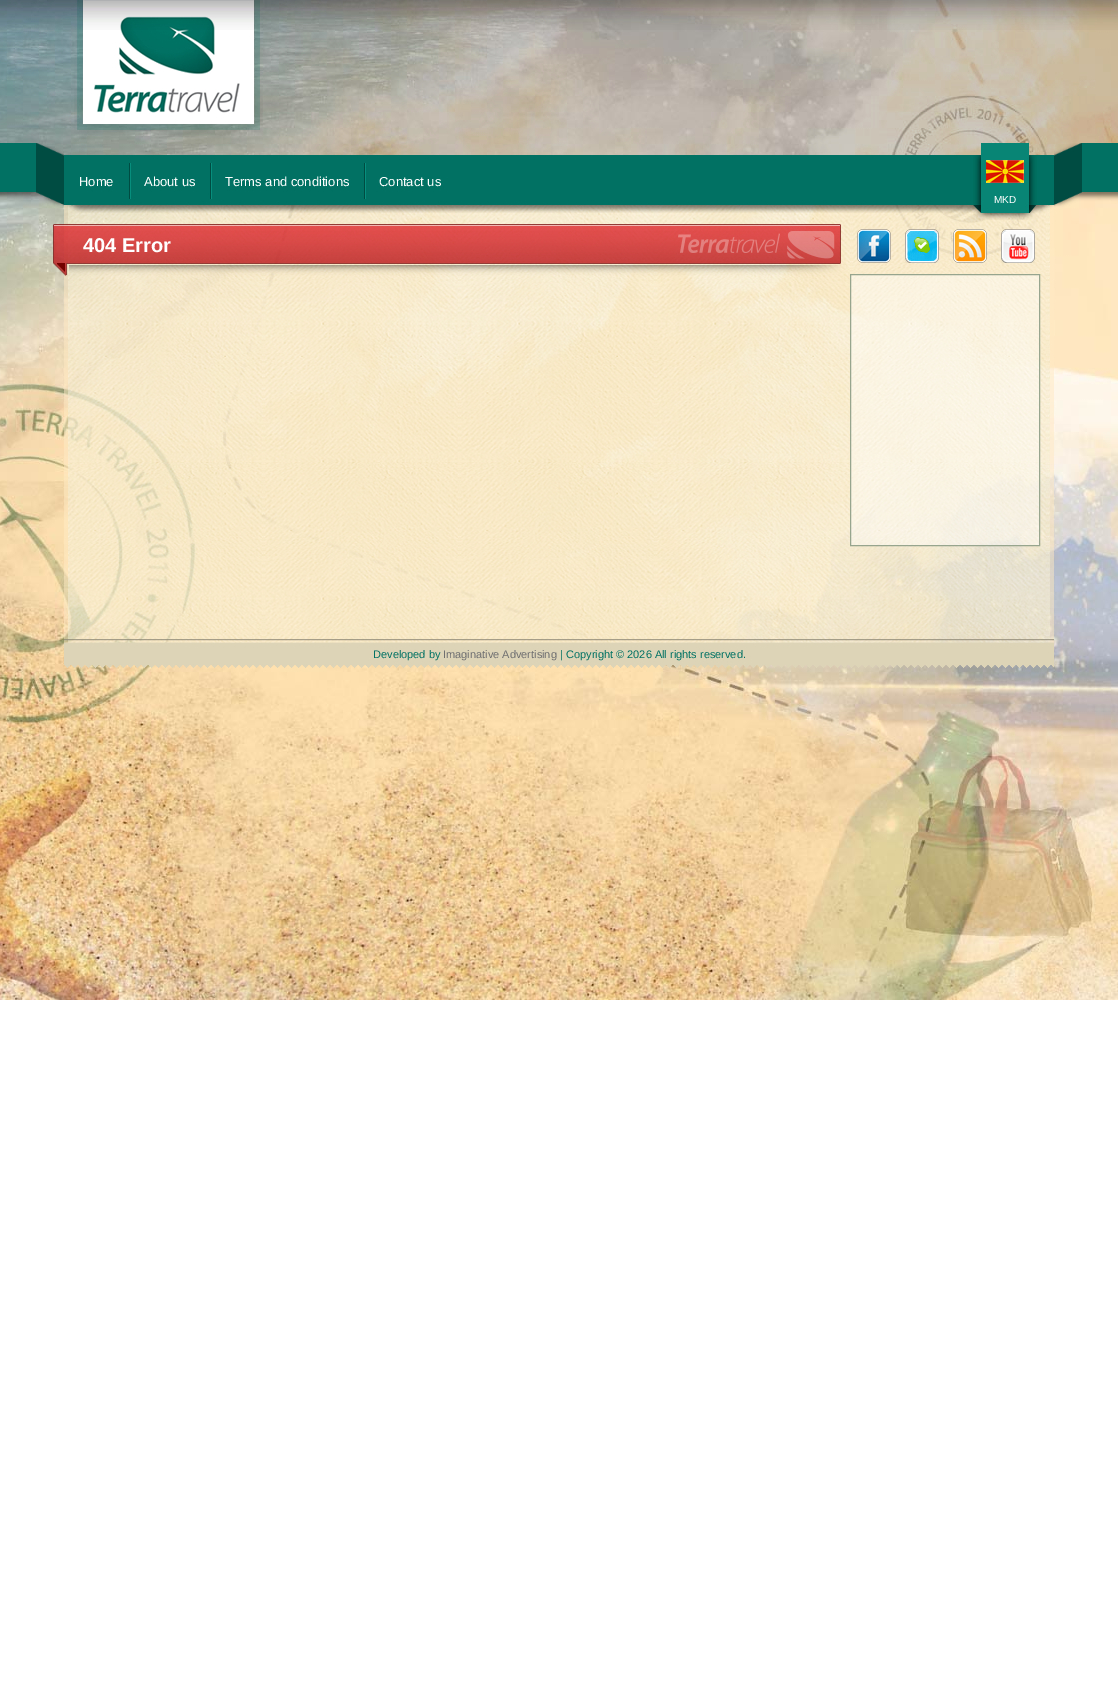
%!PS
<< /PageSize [1118 1692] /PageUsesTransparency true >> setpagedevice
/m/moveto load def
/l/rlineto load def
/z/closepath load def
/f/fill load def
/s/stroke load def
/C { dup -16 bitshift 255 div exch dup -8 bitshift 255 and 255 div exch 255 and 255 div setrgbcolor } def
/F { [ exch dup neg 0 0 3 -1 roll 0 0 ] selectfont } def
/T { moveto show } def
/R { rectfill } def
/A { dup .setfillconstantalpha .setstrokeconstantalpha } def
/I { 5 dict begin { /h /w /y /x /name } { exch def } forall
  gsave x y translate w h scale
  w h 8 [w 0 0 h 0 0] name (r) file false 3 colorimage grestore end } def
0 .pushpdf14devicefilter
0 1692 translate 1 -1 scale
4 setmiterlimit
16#FFFFFF C
0 0 1118 1692 R
(1.rgb) 0 0 1118 1000 I
0.2 A
16#000000 C
0 0 1118 156 R
1 A
(3.rgb) 74 0 189 135 I
(2.rgb) 0 0 1118 30 I
0.5 A
16#FFE9C3 C
64 205 990 438 R
1 A
(8.rgb) 68 205 982 438 I
(4.rgb) 0 143 1118 70 I
/LiberationSans-Regular 13 F
16#FFFFFF C
(Home) 79 186 T
(5.rgb) 129 163 2 36 I
(About us) 144 186 T
(5.rgb) 210 163 2 36 I
(Terms and conditions) 225 186 T
(5.rgb) 364 163 2 36 I
(Contact us) 379 186 T
(6.rgb) 973 143 64 77 I
(7.rgb) 986 160 38 23 I
/LiberationSans-Regular 10 F
(MKD) 994 203 T
(9.rgb) 53 224 788 52 I
/LiberationSans-Bold 20 F
(404 Error) 83 252 T
(10.rgb) 857 229 34 34 I
(11.rgb) 905 229 34 34 I
(12.rgb) 953 229 34 34 I
(13.rgb) 1001 229 34 34 I
0.4 A
850.5 274.5 m 189 0 l 0 271 l -189 0 l z f
1 A
16#97A58E C
850.5 274.5 m 189 0 l 0 271 l -189 0 l z s
(14.rgb) 64 639 990 29 I
/LiberationSans-Regular 11 F
16#007162 C
(Developed by) 373 658 T
16#6F6F6F C
(Imaginative Advertising) 443 658 T
16#007162 C
(| Copyright © 2026 All rights reserved.) 560 658 T
.poppdf14devicefilter showpage
